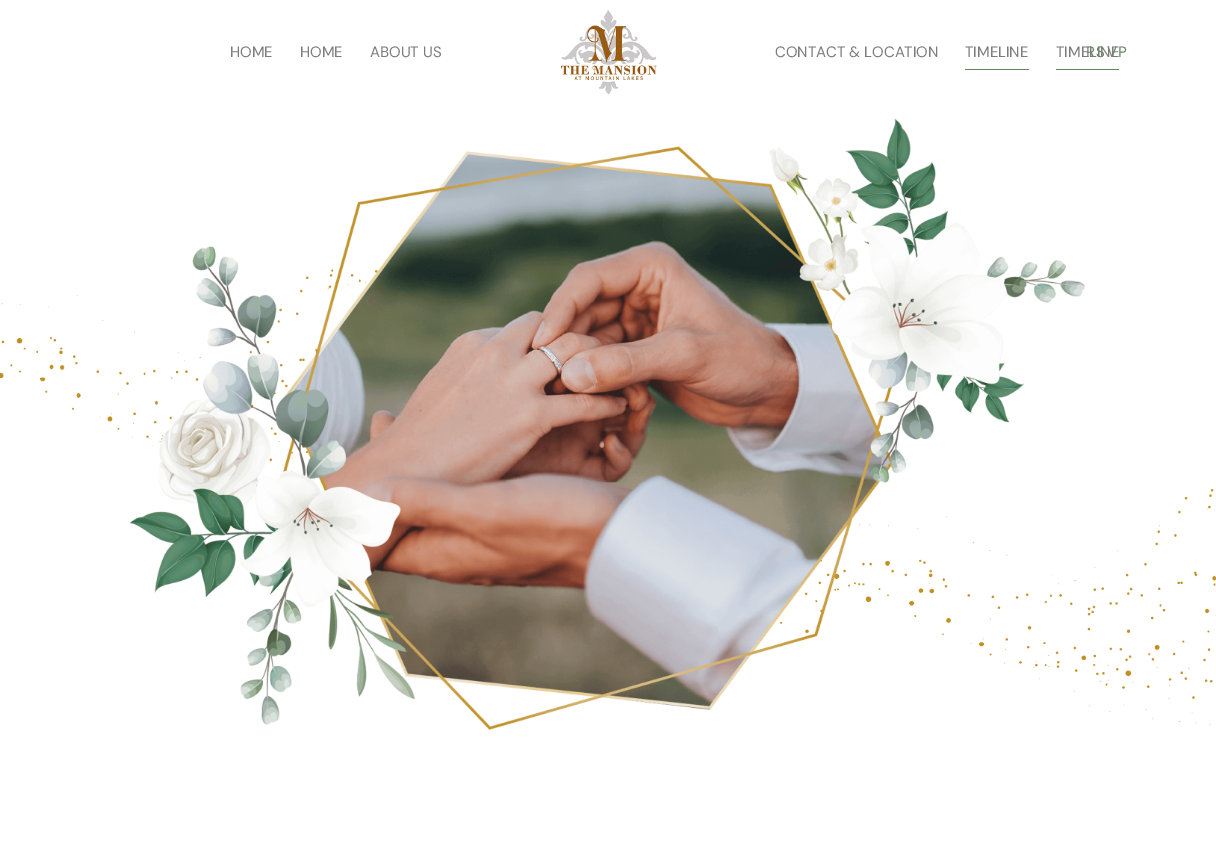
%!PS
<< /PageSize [1216 852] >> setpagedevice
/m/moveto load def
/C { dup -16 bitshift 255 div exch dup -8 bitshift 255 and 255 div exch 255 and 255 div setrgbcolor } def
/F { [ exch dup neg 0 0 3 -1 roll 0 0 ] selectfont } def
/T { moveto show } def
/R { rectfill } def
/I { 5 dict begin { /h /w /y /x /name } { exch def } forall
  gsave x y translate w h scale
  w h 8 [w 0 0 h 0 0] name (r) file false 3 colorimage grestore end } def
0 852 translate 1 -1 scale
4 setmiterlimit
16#FFFFFF C
0 0 1216 852 R
(1.rgb) 560 10 97 85 I
/DMSans-Regular 15 F
16#7C7C7C C
(HOME) 230 57 T
(HOME) 300 57 T
(ABOUT US) 370 57 T
(CONTACT & LOCATION) 775 57 T
(TIMELINE) 965 57 T
16#62875C C
965 69 64 1 R
1086 57 m 1.5 0 (RSVP) ashow
16#7C7C7C C
(TIMELINE) 1056 57 T
16#62875C C
1056 69 63 1 R
(3.rgb) 0 269 1216 456 I
(2.rgb) 130 118 955 613 I
showpage
